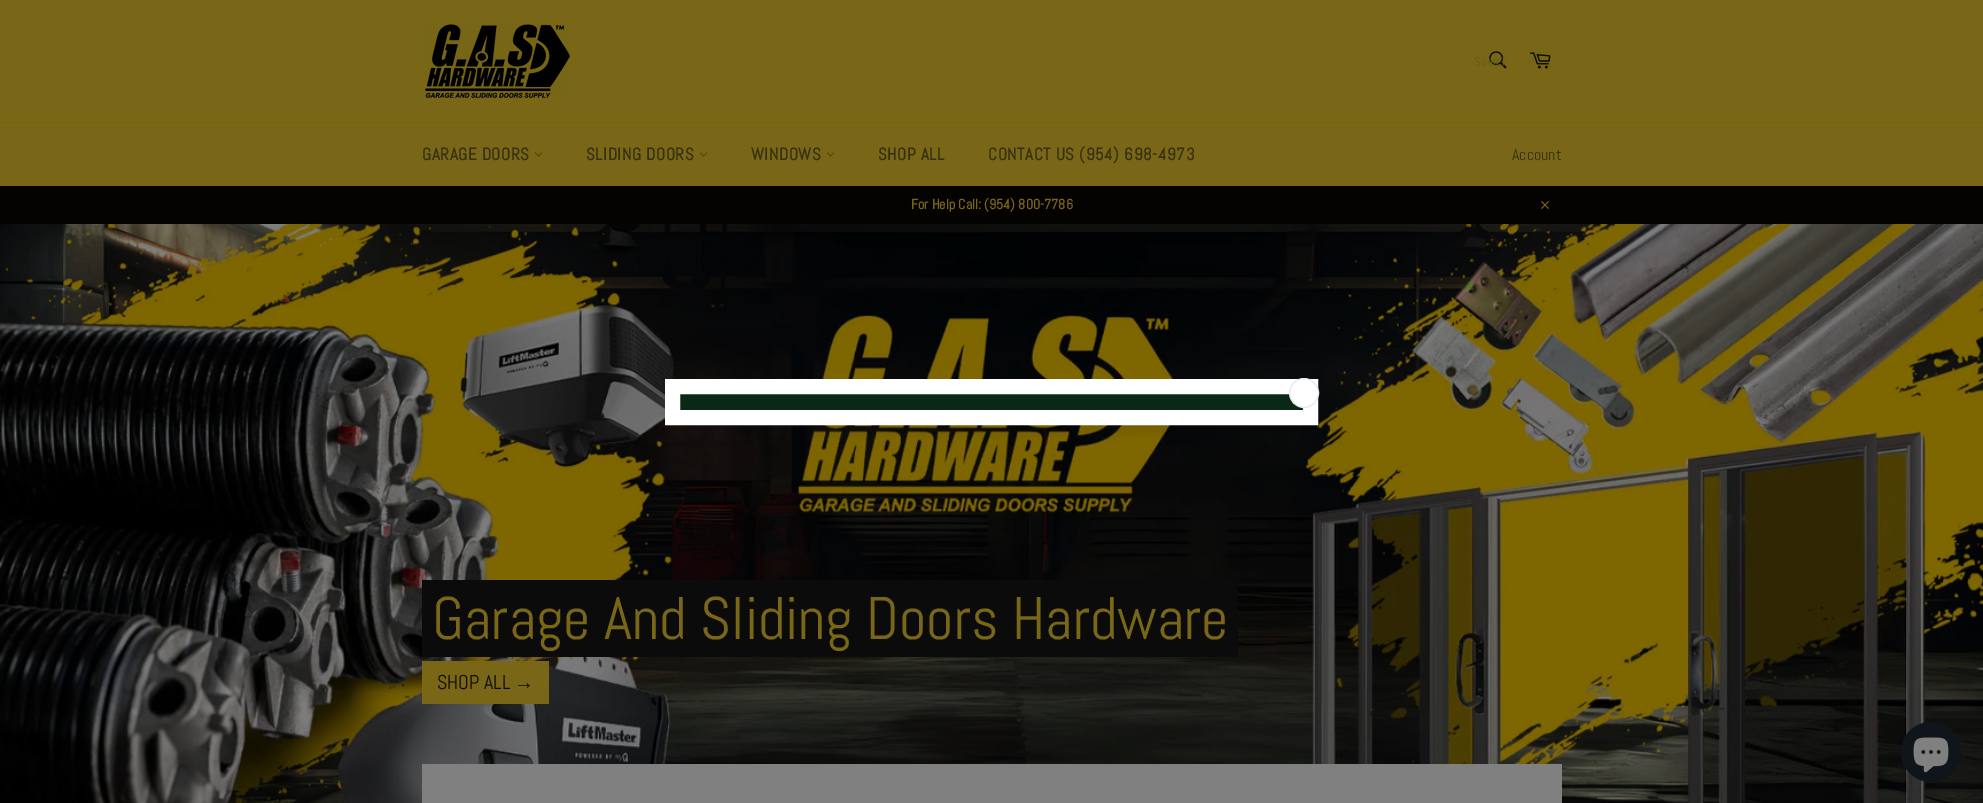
%!PS
<< /PageSize [1983 803] /PageUsesTransparency true >> setpagedevice
/m/moveto load def
/l/rlineto load def
/z/closepath load def
/f/fill load def
/s/stroke load def
/q/gsave load def
/Q_/grestore load def
/w/setlinewidth load def
/C { dup -16 bitshift 255 div exch dup -8 bitshift 255 and 255 div exch 255 and 255 div setrgbcolor } def
/F { [ exch dup neg 0 0 3 -1 roll 0 0 ] selectfont } def
/T { moveto show } def
/R { rectfill } def
/A { dup .setfillconstantalpha .setstrokeconstantalpha } def
/O { newpath 0 360 arc closepath } def
/Q { 5 dict begin { /r /h /w /y /x } { exch def } forall
  x r add y moveto x w add y 2 copy h add r arct x w add y h add x 1 index r arct
  x y h add x y r arct x y 2 copy exch w add exch r arct closepath end } def
/S { 12 dict begin { /a /b /q /h /w /y /x } { exch def } forall gsave /was 0 def
  9 -2 -9 { dup b mul 4 div /e exch def 1 sub .425 mul 2.718 exch exp 1 add a .99 .min exch div /now exch def
    1 1 now sub 1 was sub div sub A /was now def
    w h .min e 2 mul add 0 gt { x e sub y e sub w e 2 mul add h e 2 mul add
      q e add b .6 mul add w h .min 2 div e add .min 0 .max Q fill } if } for grestore end } def
/I { 5 dict begin { /h /w /y /x /name } { exch def } forall
  gsave x y translate w h scale
  w h 8 [w 0 0 h 0 0] name (r) file false 3 colorimage grestore end } def
0 .pushpdf14devicefilter
0 803 translate 1 -1 scale
4 setmiterlimit
16#796617 C
0 0 1983 803 R
(1.rgb) 425 24 145 74 I
(2.rgb) 1489 51 18 18 I
q
1474 53 32 17 rectclip
/Abel-Regular 13 F
16#6B5B16 C
(Search) 1474 66 T
Q_
(3.rgb) 1529 52 22 17 I
16#78630B C
0 122 1983 1 R
/Abel-Bold 17 F
16#373010 C
422 160 m .6 0 (GARAGE DOORS) ashow
(4.rgb) 535 152 7 5 I
586 160 m .6 0 (SLIDING DOORS) ashow
(4.rgb) 700 152 7 5 I
751 160 m .6 0 (WINDOWS) ashow
(4.rgb) 827 152 7 5 I
878 160 m .6 0 (SHOP ALL) ashow
988 160 m .6 0 (CONTACT US \(954\) 698-4973) ashow
/Abel-Regular 16 F
(Account) 1512 160 T
16#050202 C
0 186 1983 38 R
/Abel-Bold 14 F
16#796617 C
(For Help Call: \(954\) 800-7786) 911 209 T
(5.rgb) 1541 201 8 8 I
(6.rgb) 0 224 1983 579 I
16#000000 C
668 392 647 40 2 7.5 .1 S
16#0B2816 C
680 394 623 16 R
16#FFFFFF C
15 w
672.5 386.5 m 638 0 l 0 31 l -638 0 l z s
1304 393 14.5 O q f Q_
16#E2E8F0 C
1 w
s
16#0B0B0B C
422 580 816 77 R
/Abel-Regular 60 F
16#796617 C
(Garage And Sliding Doors Hardware) 432 639 T
422 661 127 43 R
/Abel-Regular 20 F
16#0B0B0B C
(SHOP ALL) 437 689 T
/LiberationSans-Regular 20 F
(→) 514 689 T
16#808080 C
422 764 1140 39 R
16#10151B C
1931 752 30 O f
(7.rgb) 1913 737 36 36 I
.poppdf14devicefilter showpage
